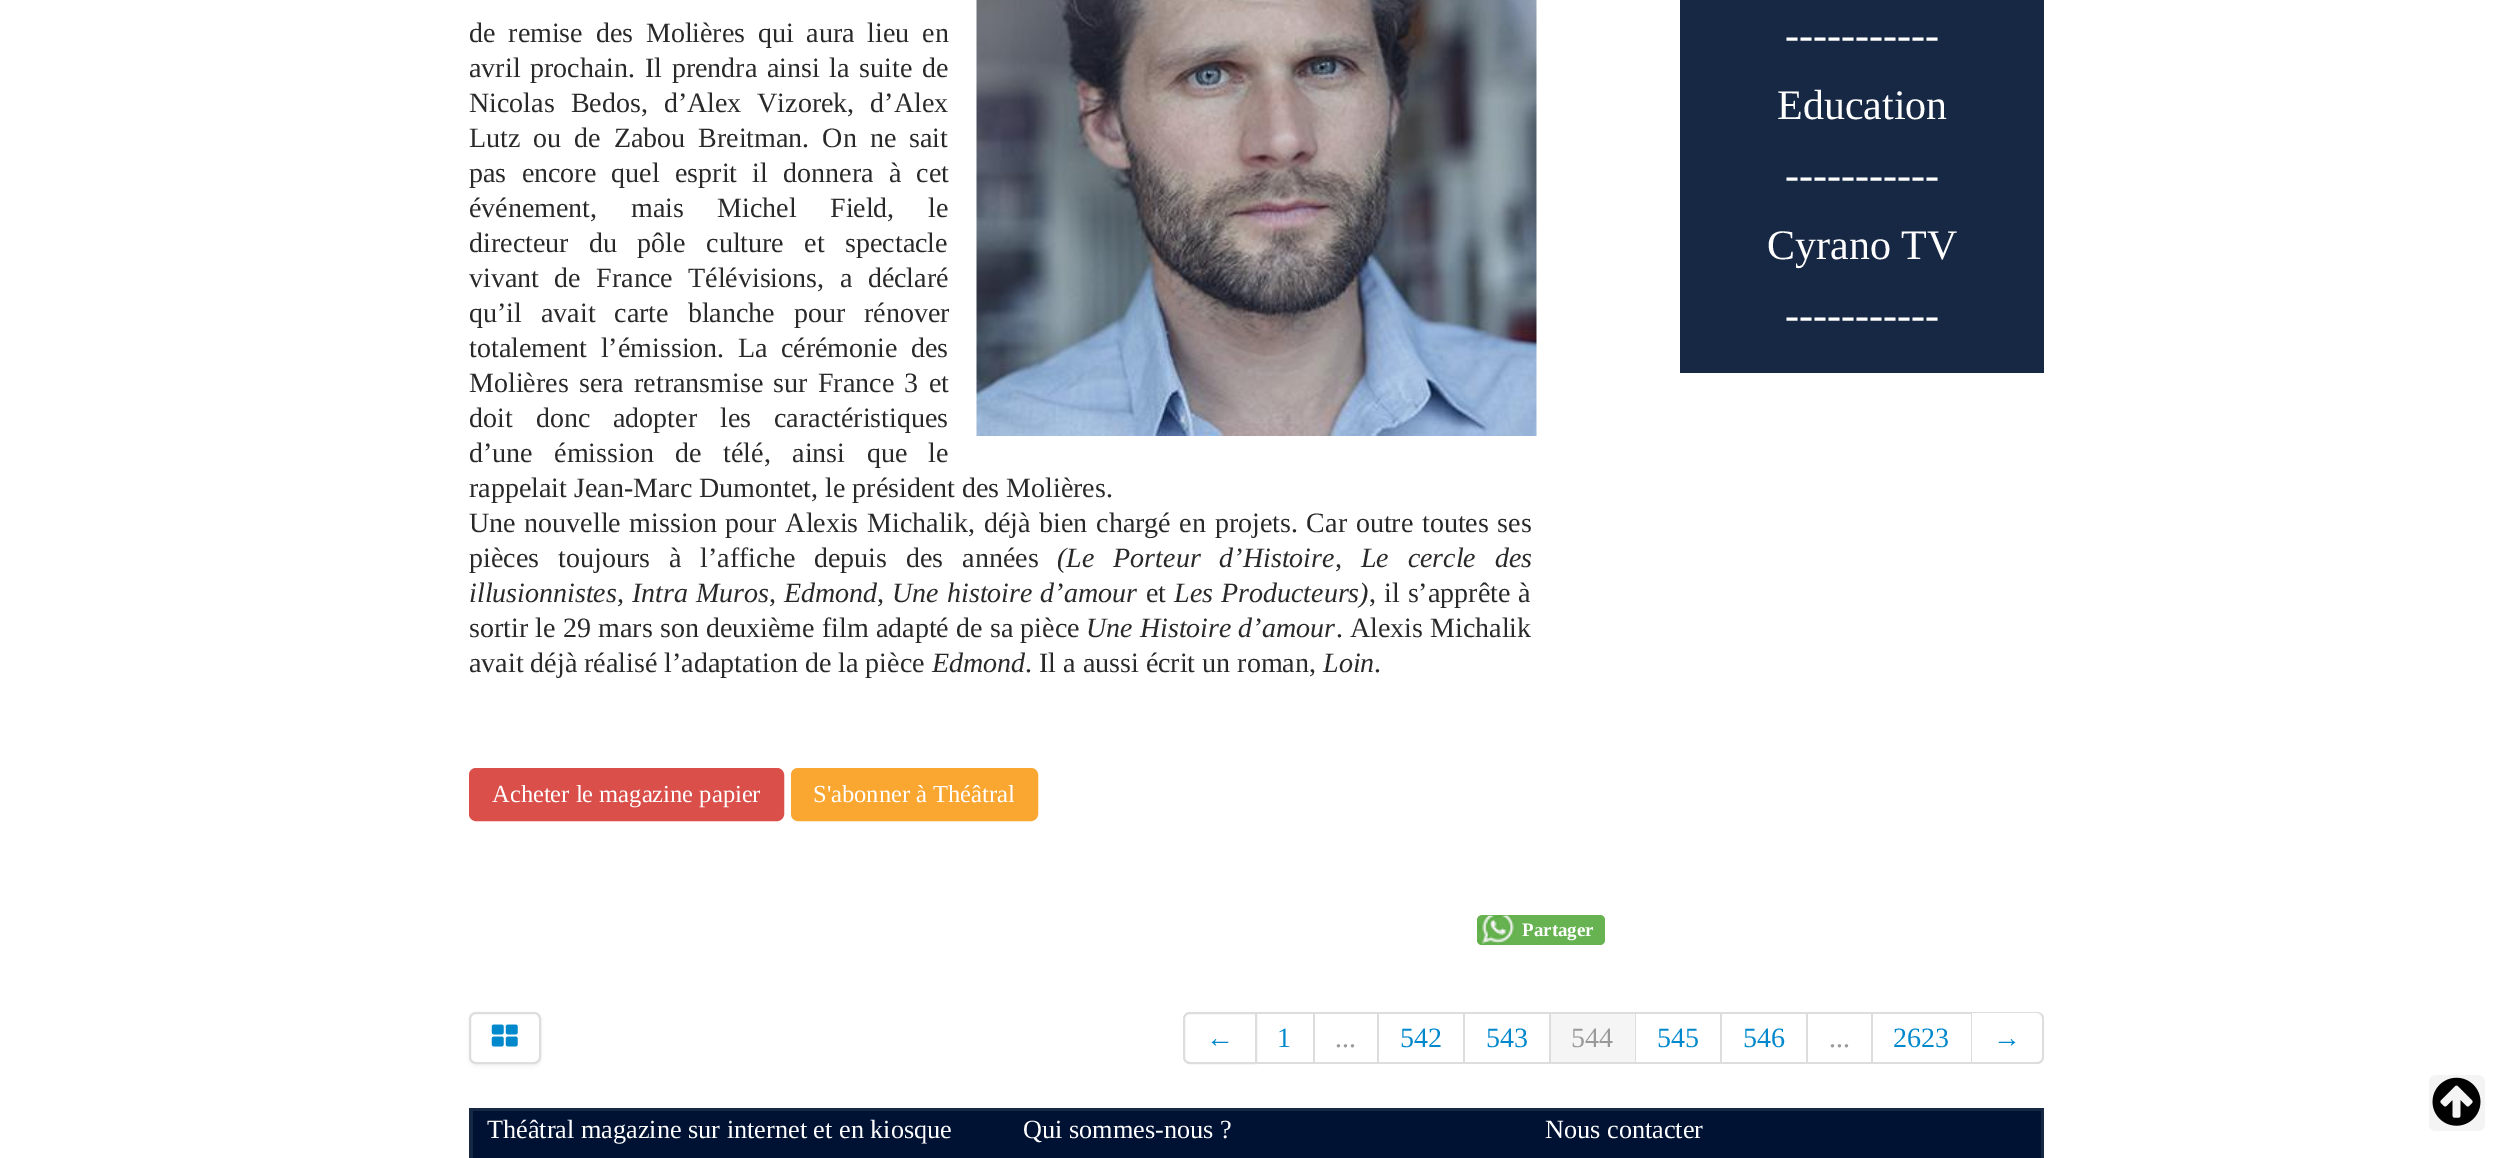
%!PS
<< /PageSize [2512 1158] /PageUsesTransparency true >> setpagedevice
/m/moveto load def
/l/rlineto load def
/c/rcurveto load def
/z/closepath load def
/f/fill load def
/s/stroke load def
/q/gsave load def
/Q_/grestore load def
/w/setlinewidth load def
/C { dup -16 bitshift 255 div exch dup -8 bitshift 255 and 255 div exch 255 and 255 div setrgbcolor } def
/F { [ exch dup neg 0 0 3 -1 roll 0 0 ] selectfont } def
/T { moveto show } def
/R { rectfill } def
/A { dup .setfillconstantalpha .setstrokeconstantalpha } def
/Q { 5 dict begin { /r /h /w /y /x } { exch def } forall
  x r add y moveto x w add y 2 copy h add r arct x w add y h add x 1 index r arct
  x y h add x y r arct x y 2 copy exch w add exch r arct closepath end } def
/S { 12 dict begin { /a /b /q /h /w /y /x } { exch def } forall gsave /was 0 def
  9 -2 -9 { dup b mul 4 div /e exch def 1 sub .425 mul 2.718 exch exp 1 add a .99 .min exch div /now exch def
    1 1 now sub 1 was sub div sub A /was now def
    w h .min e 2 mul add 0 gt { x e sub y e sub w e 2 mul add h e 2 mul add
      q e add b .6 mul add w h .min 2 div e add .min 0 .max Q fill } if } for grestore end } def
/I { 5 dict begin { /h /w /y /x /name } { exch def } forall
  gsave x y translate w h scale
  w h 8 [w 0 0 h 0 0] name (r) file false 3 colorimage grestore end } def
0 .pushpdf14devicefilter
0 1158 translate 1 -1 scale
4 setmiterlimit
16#FFFFFF C
0 0 2512 1158 R
(1.rgb) 976 0 561 436 I
/LiberationSerif-Regular 28 F
16#292929 C
469 42 m 5.75 0 32 (de remise des Molières qui aura lieu en) widthshow
469 77 m 2.75 0 32 (avril prochain. Il prendra ainsi la suite de) widthshow
469 112 m 9 0 32 (Nicolas Bedos, d’Alex Vizorek, d’Alex) widthshow
469 147 m 6 0 32 (Lutz ou de Zabou Breitman. On ne sait) widthshow
469 182 m 8.25 0 32 (pas encore quel esprit il donnera à cet) widthshow
469 217 m 26.5 0 32 (événement, mais Michel Field, le) widthshow
469 252 m 13.5 0 32 (directeur du pôle culture et spectacle) widthshow
469 287 m 8.5 0 32 (vivant de France Télévisions, a déclaré) widthshow
469 322 m 12 0 32 (qu’il avait carte blanche pour rénover) widthshow
469 357 m 6.5 0 32 (totalement l’émission. La cérémonie des) widthshow
469 392 m 3.25 0 32 (Molières sera retransmise sur France 3 et) widthshow
469 427 m 16 0 32 (doit donc adopter les caractéristiques) widthshow
469 462 m 14.5 0 32 (d’une émission de télé, ainsi que le) widthshow
(rappelait Jean-Marc Dumontet, le président des Molières.) 469 497 T
469 532 m 1.7 0 32 (Une nouvelle mission pour Alexis Michalik, déjà bien chargé en projets. Car outre toutes ses) widthshow
469 567 m 12 0 32 (pièces toujours à l’affiche depuis des années) widthshow
/LiberationSerif-Italic 28 F
1057 567 m 12 0 32 (\(Le Porteur d’Histoire, Le cercle des) widthshow
469 602 m 1 0 32 (illusionnistes, Intra Muros, Edmond, Une histoire d’amour) widthshow
/LiberationSerif-Regular 28 F
(et) 1146 602 T
/LiberationSerif-Italic 28 F
1174 602 m 1 0 32 (Les Producteurs\)) widthshow
/LiberationSerif-Regular 28 F
1369 602 m 1 0 32 (, il s’apprête à) widthshow
469 637 m .25 0 32 (sortir le 29 mars son deuxième film adapté de sa pièce) widthshow
/LiberationSerif-Italic 28 F
(Une Histoire d’amour) 1086 637 T
/LiberationSerif-Regular 28 F
(. Alexis Michalik) 1336 637 T
(avait déjà réalisé l’adaptation de la pièce) 469 672 T
/LiberationSerif-Italic 28 F
(Edmond) 932 672 T
/LiberationSerif-Regular 28 F
(. Il a aussi écrit un roman,) 1025 672 T
/LiberationSerif-Italic 28 F
(Loin) 1323 672 T
/LiberationSerif-Regular 28 F
(.) 1374 672 T
16#DA4F49 C
470 769 313 51 6 Q q f Q_
2 w
s
/LiberationSerif-Regular 24.5 F
16#FFFFFF C
(Acheter le magazine papier) 492 802 T
16#FAA732 C
792 769 245 51 6 Q q f Q_
s
16#FFFFFF C
(S'abonner à Théâtral) 813 802 T
16#67B351 C
1477 915 128 30 5 Q f
(2.rgb) 1477 915 42 31 I
/LiberationSerif-Bold 19 F
16#FFFFFF C
(Partager) 1522 936 T
16#172844 C
1680 0 364 373 R
/LiberationSerif-Regular 42 F
16#FFFFFF C
(-----------) 1785 49 T
(Education) 1777 119 T
(-----------) 1785 189 T
(Cyrano TV) 1767 259 T
(-----------) 1785 329 T
16#000000 C
469 1013 72 53 7 2 .05 S
16#FFFFFF C
470 1013 70 50 6 Q q f Q_
16#DDDDDD C
s
(3.rgb) 491 1024 27 23 I
1190 1013 m 66 0 l 0 50 l -66 0 l -3.5 0 -6 -2.5 -6 -6 c 0 -38 l 0 -3.5 2.5 -6 6 -6 c z s
/LiberationSerif-Regular 28 F
16#0088CC C
(←) 1206 1047 T
16#DDDDDD C
1257 1012 57 2 R
1313 1012 2 52 R
1257 1062 57 2 R
16#0088CC C
(1) 1277 1047 T
16#DDDDDD C
1314 1012 658 2 R
1377 1012 2 52 R
1314 1062 65 2 R
16#999999 C
(...) 1335 1047 T
16#DDDDDD C
1463 1012 2 52 R
1379 1062 86 2 R
16#0088CC C
(542) 1400 1047 T
16#DDDDDD C
1549 1012 2 52 R
1465 1062 86 2 R
16#0088CC C
(543) 1486 1047 T
16#F5F5F5 C
1551 1014 84 48 R
16#DDDDDD C
1635 1012 1 52 R
1551 1062 85 2 R
16#999999 C
(544) 1571 1047 T
16#DDDDDD C
1720 1012 2 52 R
1636 1062 86 2 R
16#0088CC C
(545) 1657 1047 T
16#DDDDDD C
1806 1012 2 52 R
1722 1062 86 2 R
16#0088CC C
(546) 1743 1047 T
16#DDDDDD C
1871 1012 2 52 R
1808 1062 65 2 R
16#999999 C
(...) 1829 1047 T
16#DDDDDD C
1971 1012 1 52 R
1873 1062 99 2 R
16#0088CC C
(2623) 1893 1047 T
16#DDDDDD C
1972 1012 m 65 0 l 4 0 7 3 7 6 c 0 39 l 0 4 -3 7 -7 7 c -65 0 l z 1972 1013 m 65 0 l 3 0 5 3 5 5 c 0 39 l 0 3 -2 5 -5 5 c -65 0 l z eofill
16#0088CC C
(→) 1993 1047 T
16#172844 C
469 1108 1575 50 R
16#001233 C
473 1111 1568 47 R
/LiberationSerif-Regular 26.25 F
16#FFFFFF C
(Théâtral magazine sur internet et en kiosque) 487 1138 T
(Qui sommes-nous ?) 1023 1138 T
(Nous contacter) 1545 1138 T
16#F4F4F4 C
2429 1075 56 56 7 Q f
(4.rgb) 2432 1077 49 49 I
.poppdf14devicefilter showpage
